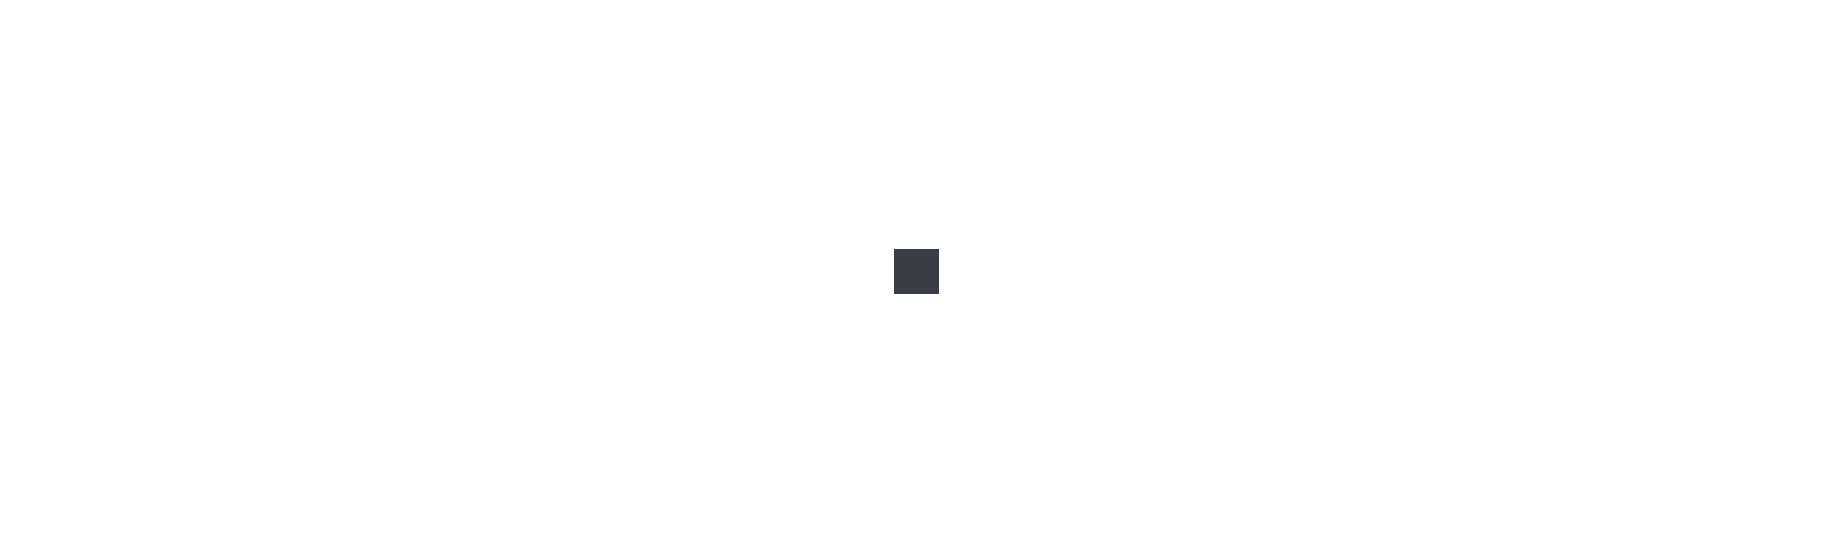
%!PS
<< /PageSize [1833 542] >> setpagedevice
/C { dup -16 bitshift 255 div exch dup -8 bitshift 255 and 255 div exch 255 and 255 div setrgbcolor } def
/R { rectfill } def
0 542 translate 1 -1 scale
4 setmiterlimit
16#FFFFFF C
0 0 1833 542 R
16#393E46 C
894 249 45 45 R
showpage
